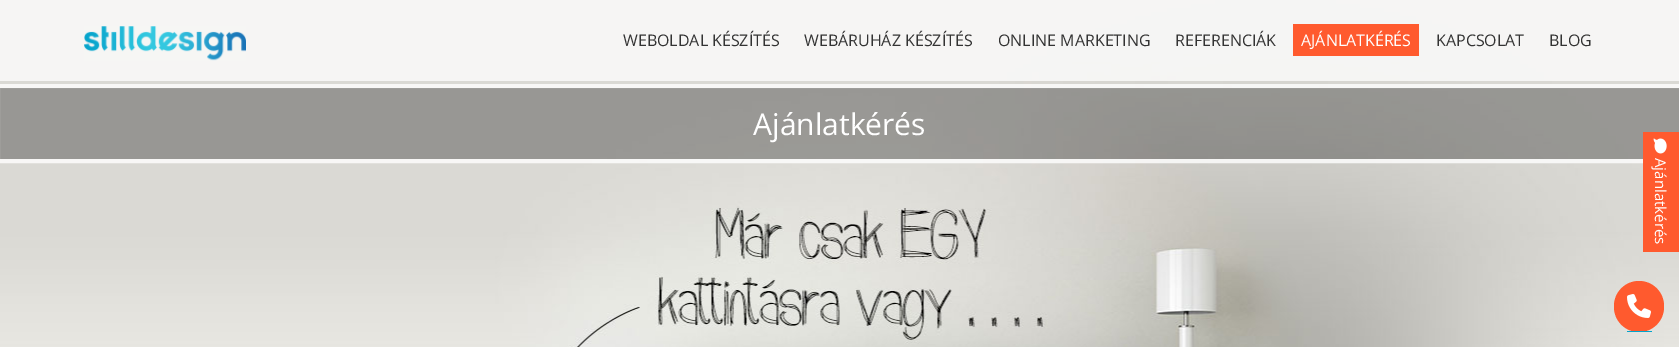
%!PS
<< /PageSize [1679 347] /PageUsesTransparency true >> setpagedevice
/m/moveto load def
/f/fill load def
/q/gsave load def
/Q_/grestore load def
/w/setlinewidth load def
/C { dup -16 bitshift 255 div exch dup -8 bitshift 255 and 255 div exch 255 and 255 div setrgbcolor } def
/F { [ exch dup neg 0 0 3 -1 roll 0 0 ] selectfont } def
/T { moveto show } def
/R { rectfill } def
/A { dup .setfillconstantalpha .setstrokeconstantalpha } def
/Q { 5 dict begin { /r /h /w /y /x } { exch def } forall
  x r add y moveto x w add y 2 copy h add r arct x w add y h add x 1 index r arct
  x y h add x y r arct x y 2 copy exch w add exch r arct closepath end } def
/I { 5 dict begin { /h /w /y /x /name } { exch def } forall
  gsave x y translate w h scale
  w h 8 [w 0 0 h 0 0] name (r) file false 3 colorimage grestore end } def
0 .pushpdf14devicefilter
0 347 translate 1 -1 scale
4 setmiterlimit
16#FFFFFF C
0 0 1679 347 R
(1.rgb) 0 0 1679 347 I
0.75 A
0 0 1679 81 R
1 A
(2.rgb) 84 26 162 35 I
/OpenSans-Regular 16 F
16#333333 C
(WEBOLDAL KÉSZÍTÉS) 623 46 T
(WEBÁRUHÁZ KÉSZÍTÉS) 804 46 T
(ONLINE MARKETING) 998 46 T
(REFERENCIÁK) 1175 46 T
16#FF5A2E C
1293 24 126 32 R
16#FFFFFF C
(AJÁNLATKÉRÉS) 1301 46 T
16#333333 C
(KAPCSOLAT) 1436 46 T
(BLOG) 1549 46 T
0.8 A
16#FFFFFF C
4 w
-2 86 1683 75 rectstroke
0.3 A
16#000000 C
0 88 1679 71 R
/OpenSans-Regular 30 F
1 A
16#FFFFFF C
(Ajánlatkérés) 753 135 T
16#FF5A2E C
1643 132 36 120 R
(3.rgb) 1653 138 14 16 I
/OpenSans-Regular 15 F
16#FFFFFF C
q 1655 158 translate 90 rotate 0 0 m (Ajánlatkérés) show Q_
16#FF5A2E C
1614 281 50 51 25 Q f
16#04A4CC C
1627 331 25 1 R
(4.rgb) 1627 294 24 24 I
.poppdf14devicefilter showpage
